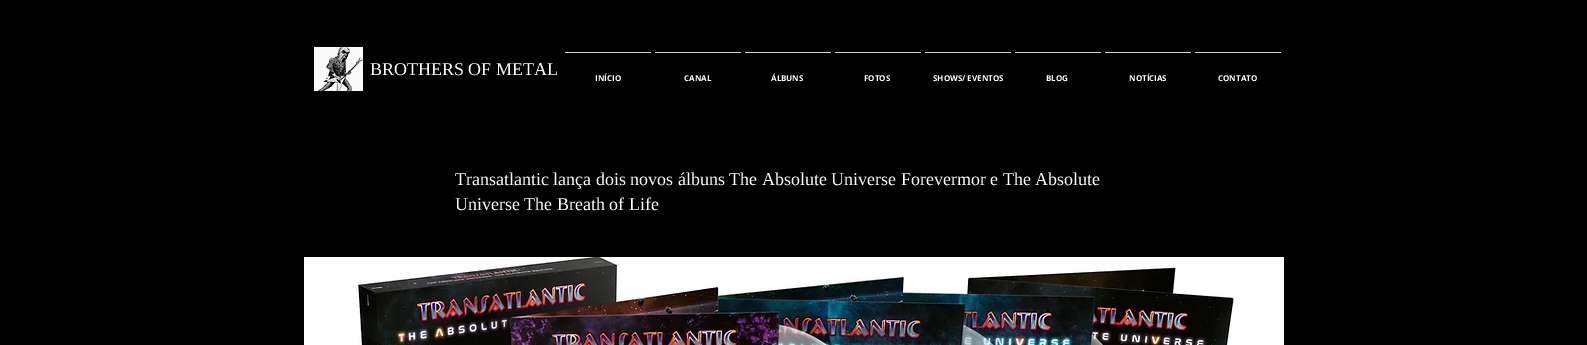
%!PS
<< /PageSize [1587 345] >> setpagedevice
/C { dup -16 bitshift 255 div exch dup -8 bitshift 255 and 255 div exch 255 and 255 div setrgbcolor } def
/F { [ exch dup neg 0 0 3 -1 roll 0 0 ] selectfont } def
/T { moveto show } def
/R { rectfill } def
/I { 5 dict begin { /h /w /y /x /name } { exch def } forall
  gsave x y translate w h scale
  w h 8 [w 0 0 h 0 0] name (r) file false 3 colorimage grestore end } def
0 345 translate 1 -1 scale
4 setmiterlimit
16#000000 C
0 0 1587 345 R
(1.rgb) 314 47 49 44 I
/LiberationSerif-Regular 18 F
16#FFFFFF C
(BROTHERS OF METAL) 370 75 T
16#CFCFCF C
565 52 86 1 R
/OpenSans-Bold 8 F
16#FFFFFF C
(INÍCIO) 595 81 T
16#CFCFCF C
655 52 86 1 R
16#FFFFFF C
(CANAL) 684 81 T
16#CFCFCF C
745 52 86 1 R
16#FFFFFF C
(ÁLBUNS) 771 81 T
16#CFCFCF C
835 52 86 1 R
16#FFFFFF C
(FOTOS) 864 81 T
16#CFCFCF C
925 52 86 1 R
16#FFFFFF C
(SHOWS/ EVENTOS) 933 81 T
16#CFCFCF C
1015 52 86 1 R
16#FFFFFF C
(BLOG) 1046 81 T
16#CFCFCF C
1105 52 86 1 R
16#FFFFFF C
(NOTÍCIAS) 1129 81 T
16#CFCFCF C
1195 52 86 1 R
16#FFFFFF C
(CONTATO) 1218 81 T
/LiberationSerif-Regular 18 F
(Transatlantic lança dois novos álbuns The Absolute Universe Forevermor e The Absolute) 455 185 T
(Universe The Breath of Life) 455 210 T
(2.rgb) 304 257 980 88 I
showpage
